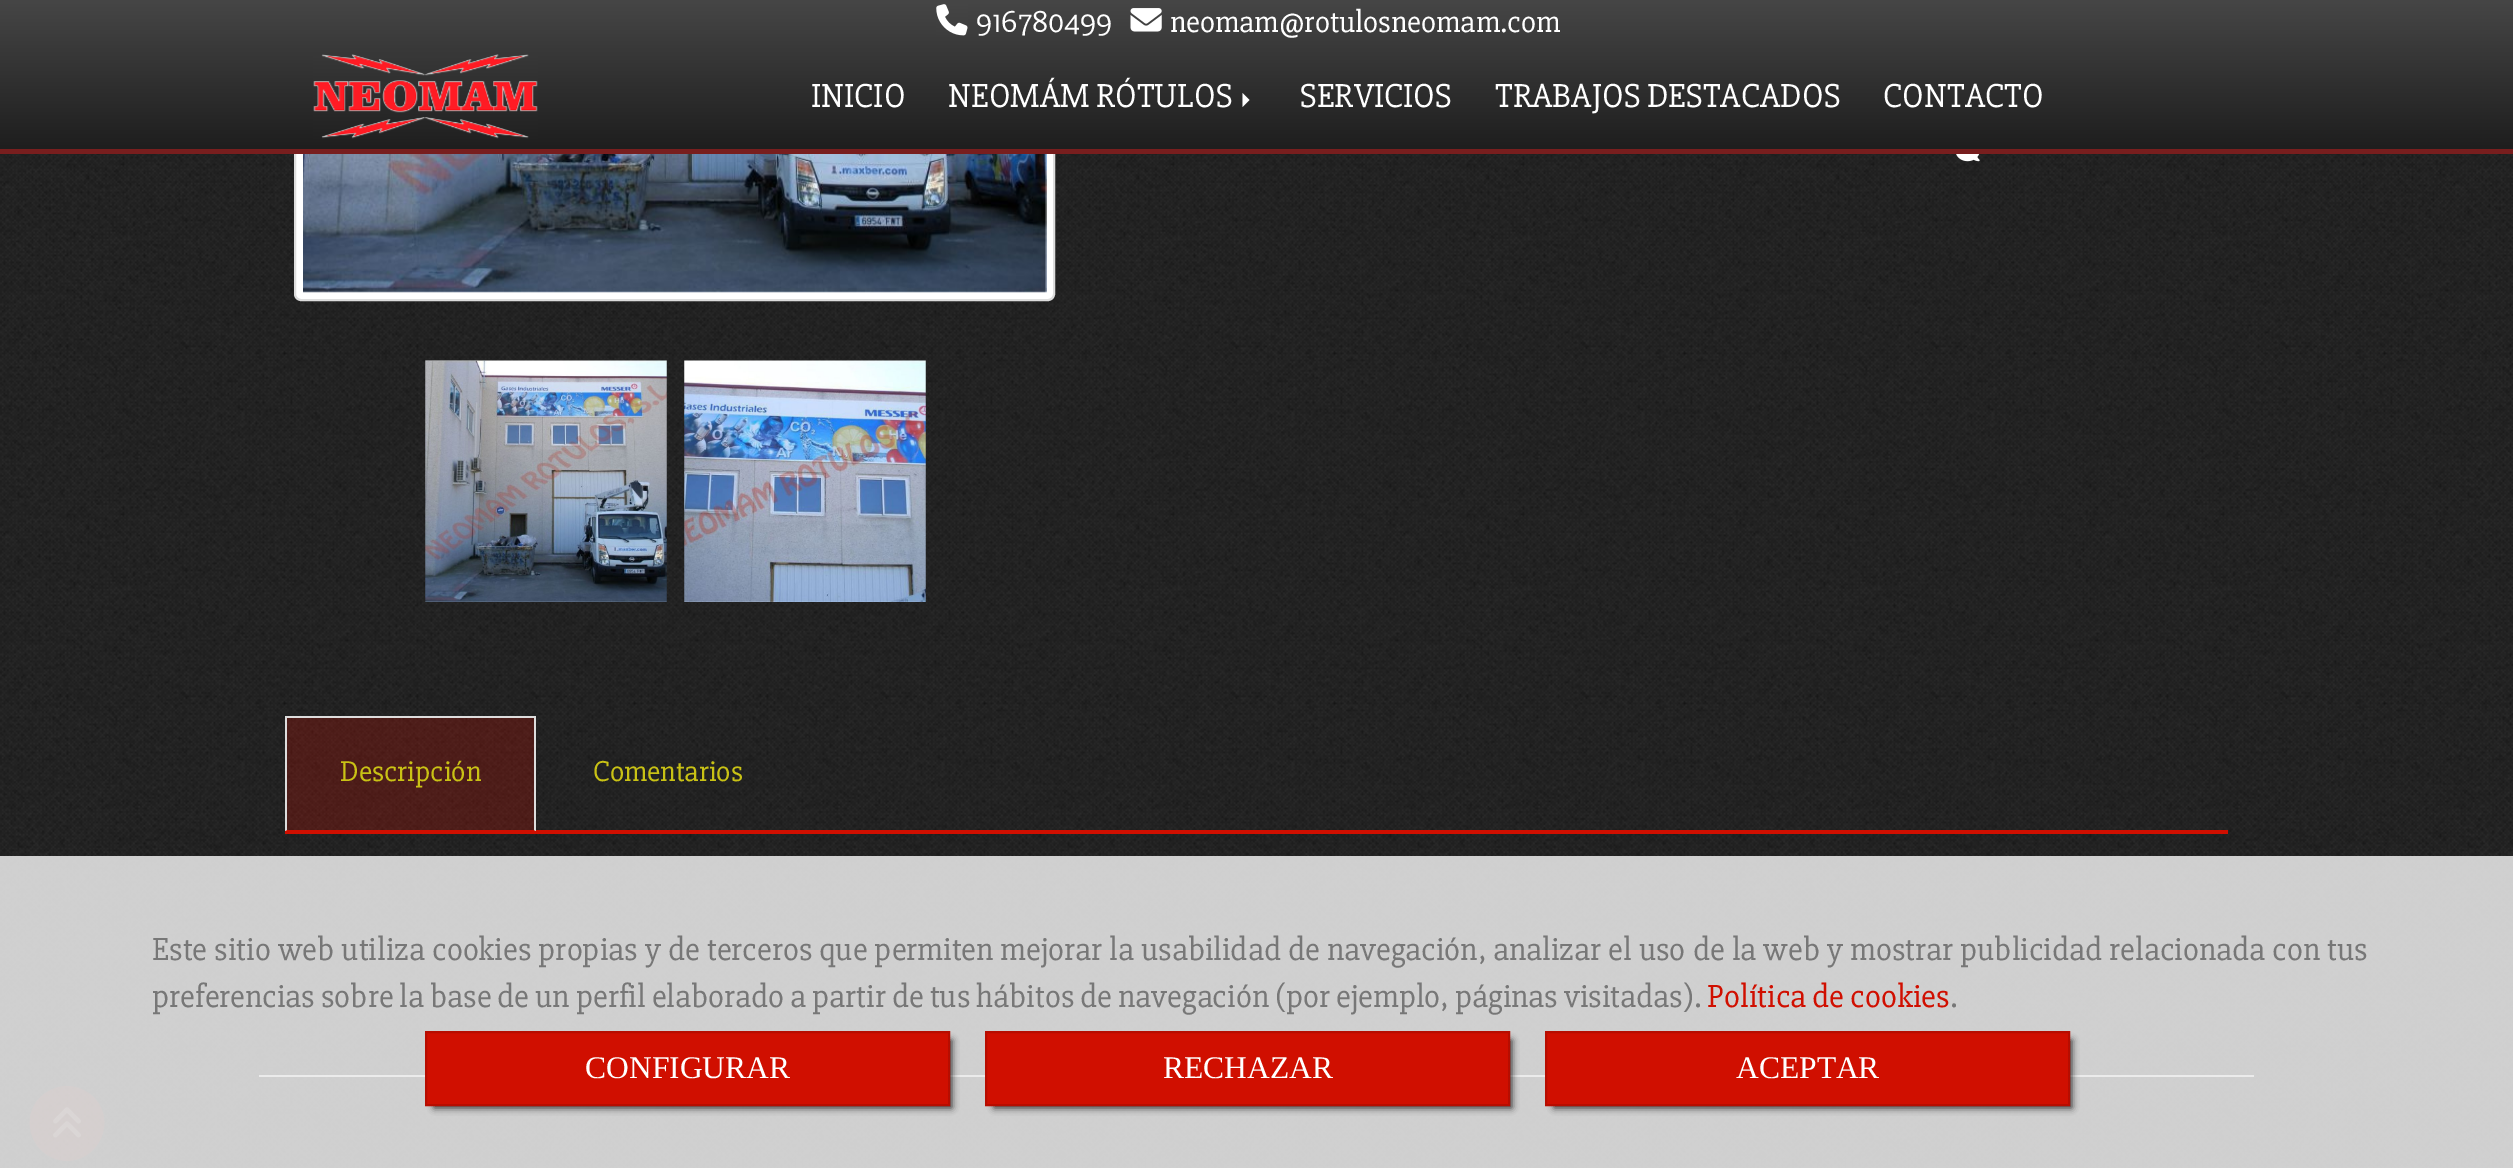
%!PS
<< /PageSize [2513 1168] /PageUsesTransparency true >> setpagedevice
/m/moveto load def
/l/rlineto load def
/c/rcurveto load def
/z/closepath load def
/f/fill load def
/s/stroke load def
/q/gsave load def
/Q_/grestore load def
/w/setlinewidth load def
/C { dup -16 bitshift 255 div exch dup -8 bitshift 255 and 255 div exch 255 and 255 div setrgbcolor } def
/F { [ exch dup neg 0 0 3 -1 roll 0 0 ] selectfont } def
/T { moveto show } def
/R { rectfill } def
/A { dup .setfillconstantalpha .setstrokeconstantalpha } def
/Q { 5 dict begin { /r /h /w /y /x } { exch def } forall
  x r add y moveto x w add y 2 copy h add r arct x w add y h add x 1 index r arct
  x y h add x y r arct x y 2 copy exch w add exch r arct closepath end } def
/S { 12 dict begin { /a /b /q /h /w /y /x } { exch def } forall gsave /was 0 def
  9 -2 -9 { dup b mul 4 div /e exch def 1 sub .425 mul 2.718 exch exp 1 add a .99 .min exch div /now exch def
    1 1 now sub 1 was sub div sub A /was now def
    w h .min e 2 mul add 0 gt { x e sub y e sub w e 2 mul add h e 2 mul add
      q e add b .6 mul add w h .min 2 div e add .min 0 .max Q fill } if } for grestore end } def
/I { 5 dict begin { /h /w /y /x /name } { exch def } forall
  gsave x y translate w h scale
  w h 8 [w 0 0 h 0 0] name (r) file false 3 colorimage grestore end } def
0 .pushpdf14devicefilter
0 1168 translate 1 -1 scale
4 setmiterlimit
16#FFFFFF C
0 0 2513 1168 R
(1.rgb) 0 154 2513 1014 I
295 -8 759 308 6 Q q f Q_
16#DDDDDD C
2 w
s
q 0 0 m 2513 0 l 0 149 l -2513 0 l z clip newpath
<< /ShadingType 2 /ColorSpace /DeviceRGB /Coords [1257 0 1257 149] /Extend [true true] /Function << /FunctionType 2 /Domain [0 1] /C0 [.275 .275 .275] /C1 [.118 .118 .118] /N 1 >> >> shfill Q_
16#781E1E C
0 149 2513 5 R
(2.rgb) 936 4 32 32 I
/Slabo27px-Regular 31.25 F
16#FFFFFF C
(916780499) 976 32 T
(3.rgb) 1130 8 32 24 I
(neomam@rotulosneomam.com) 1170 32 T
(4.rgb) 313 54 225 85 I
/Slabo27px-Regular 34.4 F
(INICIO) 811 107 T
(NEOMÁM RÓTULOS) 948 107 T
1242.5 107 m 0 -14 l 7 7 l z f
(SERVICIOS) 1300 107 T
(TRABAJOS DESTACADOS) 1495 107 T
(CONTACTO) 1883 107 T
(5.rgb) 303 154 744 139 I
(6.rgb) 425 360 242 242 I
(7.rgb) 684 360 242 242 I
(8.rgb) 1956 154 24 8 I
16#D00F00 C
285 830 1943 4 R
0.25 A
285 718 251 112 R
1 A
16#DDDDDD C
285 716 251 2 R
536 716 m 0 115 l -2 -1 l 0 -112 l z f
285 831 m 0 -115 l 2 2 l 0 112 l z f
/Slabo27px-Regular 29.75 F
16#C9C215 C
(Descripción) 340 781 T
(Comentarios) 593 781 T
16#DDDDDD C
259 1075 1995 2 R
0.2 A
16#D00F00 C
67 1161 m 35 -1 51 -45 23 -67 c -7 -5 -15 -8 -23 -8 c -8 0 -16 3 -23 8 c -28 22 -12 66 23 67 c z f
1 A
(9.rgb) 53 1107 28 31 I
0.85 A
16#EEEEEE C
0 856 2513 312 R
/Slabo27px-Regular 33.07 F
1 A
16#777777 C
152 960 m 1.1 0 32 (Este sitio web utiliza cookies propias y de terceros que permiten mejorar la usabilidad de navegación, analizar el uso de la web y mostrar publicidad relacionada con tus) widthshow
(preferencias sobre la base de un perfil elaborado a partir de tus hábitos de navegación \(por ejemplo, páginas visitadas\).) 152 1007 T
16#D00F00 C
(Política de cookies) 1707 1007 T
16#777777 C
(.) 1950 1007 T
16#000000 C
434 1040 518 68 0 3.5 .75 S
16#D00F00 C
426 1032 m 523 0 l 0 73 l -523 0 l z q f Q_
16#B70D00 C
s
/LiberationSerif-Regular 31.5 F
16#FFFFFF C
(CONFIGURAR) 585 1078 T
16#000000 C
994 1040 518 68 0 3.5 .75 S
16#D00F00 C
986 1032 m 523 0 l 0 73 l -523 0 l z q f Q_
16#B70D00 C
s
16#FFFFFF C
(RECHAZAR) 1163 1078 T
16#000000 C
1554 1040 518 68 0 3.5 .75 S
16#D00F00 C
1546 1032 m 523 0 l 0 73 l -523 0 l z q f Q_
16#B70D00 C
s
16#FFFFFF C
(ACEPTAR) 1736 1078 T
.poppdf14devicefilter showpage
